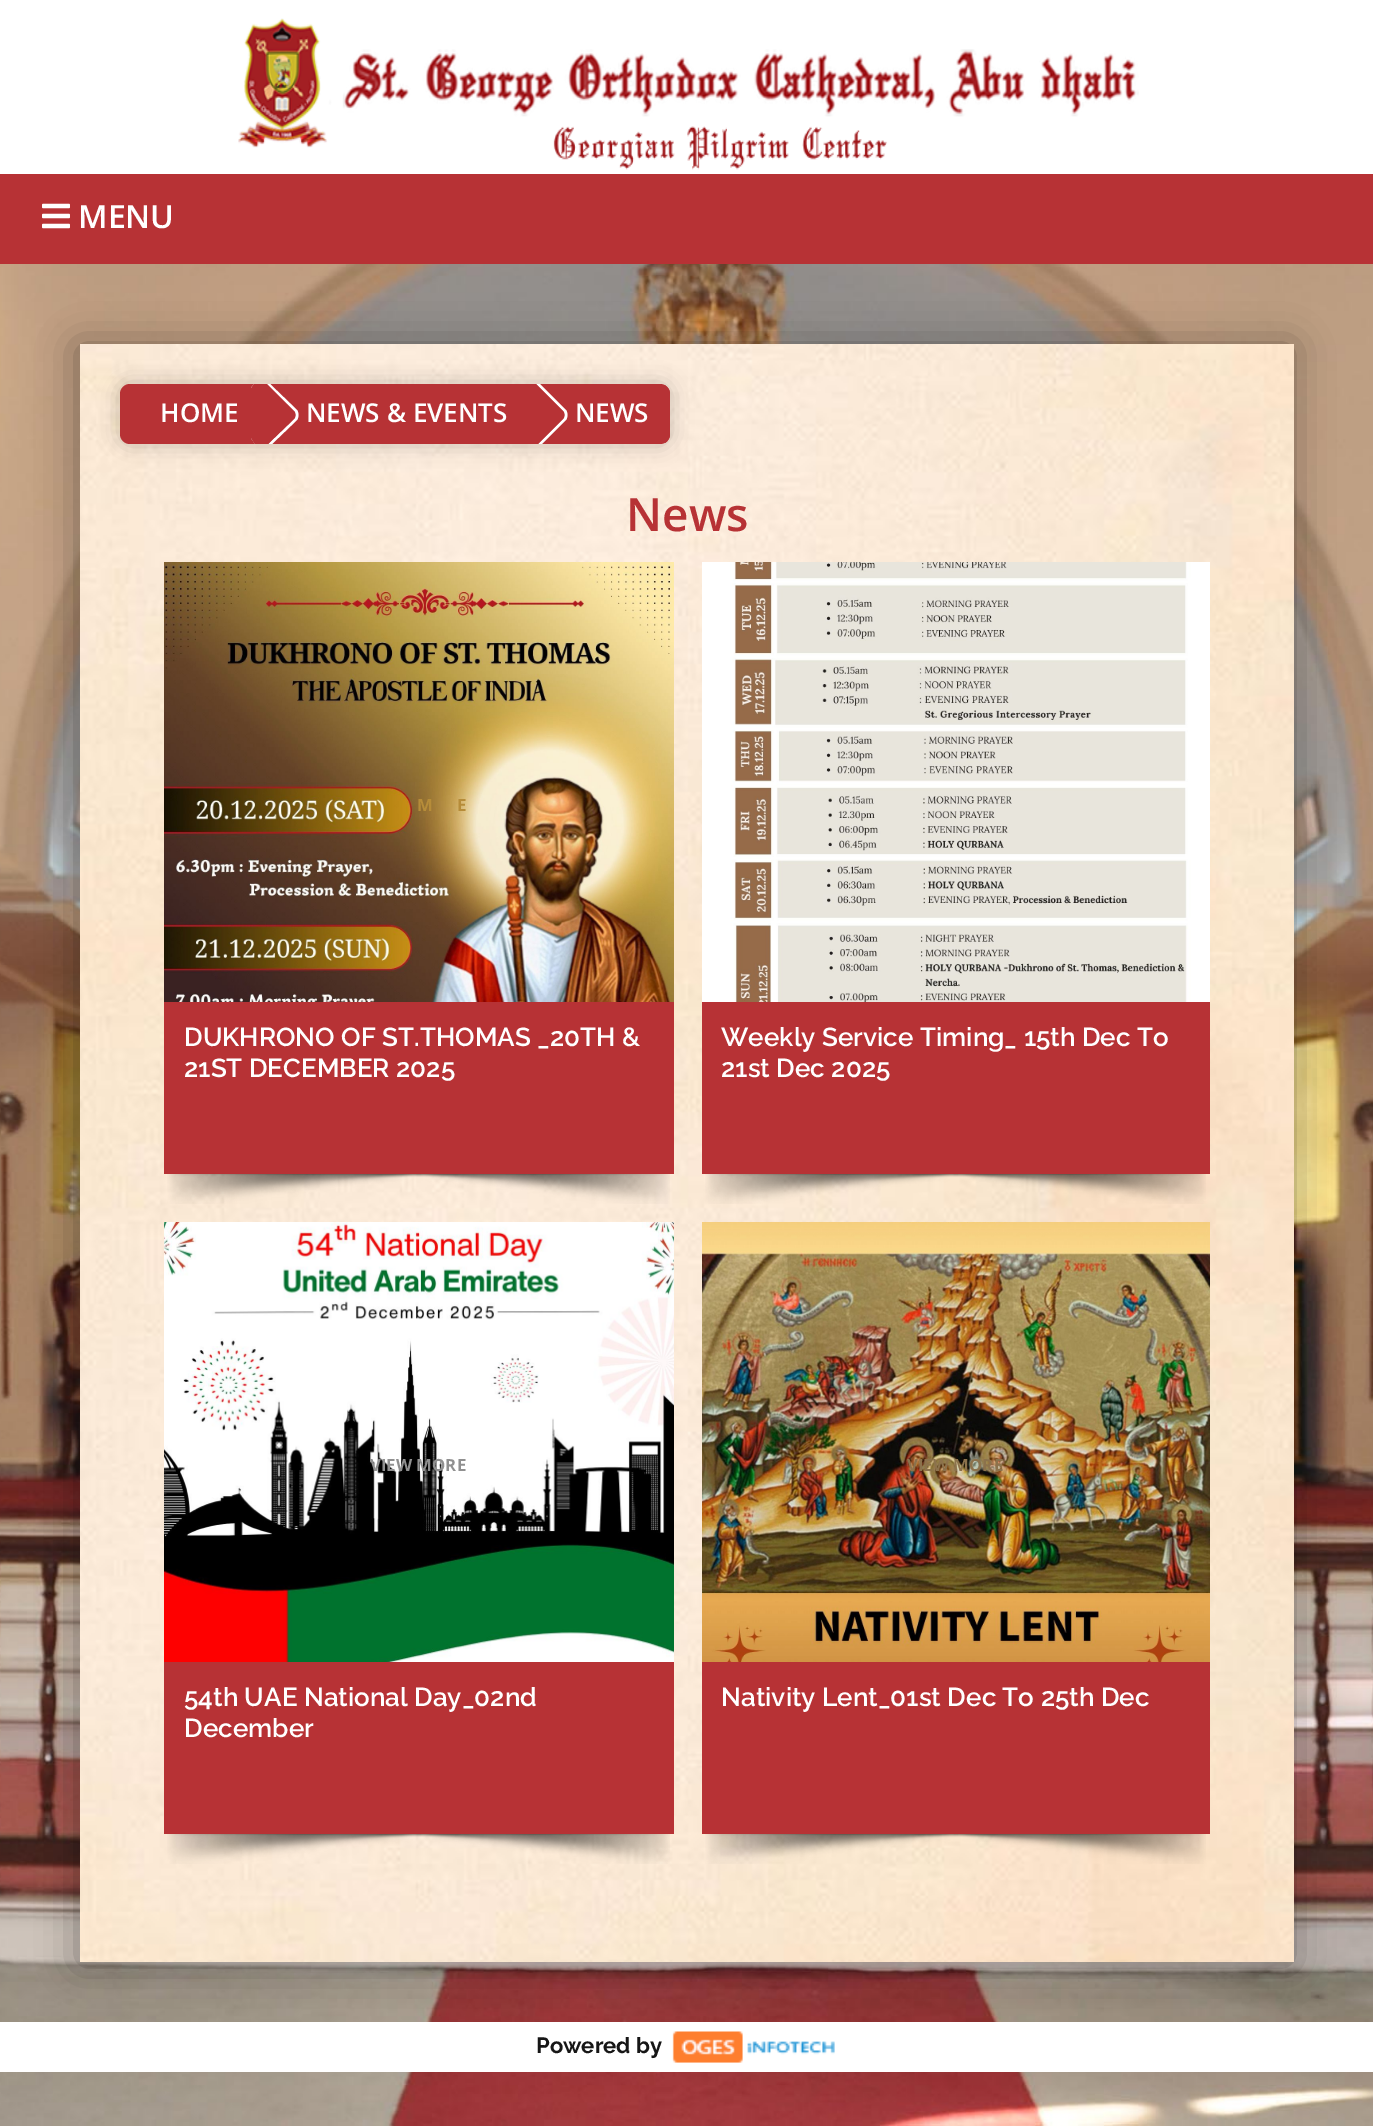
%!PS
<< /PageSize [1373 2126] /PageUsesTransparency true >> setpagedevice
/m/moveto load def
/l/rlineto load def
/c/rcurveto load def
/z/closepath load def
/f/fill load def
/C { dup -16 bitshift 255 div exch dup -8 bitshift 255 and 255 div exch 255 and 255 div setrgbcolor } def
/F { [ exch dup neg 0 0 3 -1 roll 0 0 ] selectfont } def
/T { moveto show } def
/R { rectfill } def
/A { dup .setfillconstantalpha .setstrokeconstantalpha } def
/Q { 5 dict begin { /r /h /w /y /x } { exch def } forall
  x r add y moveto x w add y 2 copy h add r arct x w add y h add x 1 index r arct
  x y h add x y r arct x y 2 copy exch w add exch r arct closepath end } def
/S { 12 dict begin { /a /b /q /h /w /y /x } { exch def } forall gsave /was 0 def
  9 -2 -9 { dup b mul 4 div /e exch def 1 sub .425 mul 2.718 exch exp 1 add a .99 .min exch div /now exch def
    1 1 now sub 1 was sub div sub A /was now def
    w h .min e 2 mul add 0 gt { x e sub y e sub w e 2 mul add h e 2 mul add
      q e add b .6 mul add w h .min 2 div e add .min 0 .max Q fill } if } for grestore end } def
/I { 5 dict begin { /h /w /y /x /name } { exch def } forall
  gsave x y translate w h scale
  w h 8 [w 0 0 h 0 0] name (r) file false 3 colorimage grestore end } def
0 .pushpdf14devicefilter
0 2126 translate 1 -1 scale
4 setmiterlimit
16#FFFFFF C
0 0 1373 2126 R
(1.rgb) 0 264 1373 1862 I
(2.rgb) 238 18 901 152 I
16#B73235 C
0 174 1373 90 R
(3.rgb) 42 203 28 26 I
/OpenSans-SemiBold 32 F
16#FFFFFF C
(MENU) 78 228 T
0 2022 1373 50 R
16#000000 C
78 346 1214 1618 0 20 .38 S
(4.rgb) 80 344 1214 1618 I
118 382 554 64 12 10 .18 S
16#B73235 C
120 384 550 60 10 Q f
/OpenSans-SemiBold 26 F
16#FFFFFF C
(HOME) 160 422 T
254 384 m -3 4 l z 255 444 m -4 -6 l z 268 444 m 4 0 l 25 -24 l 2 -3 2 -7 0 -10 c -27 -26 l -4 0 l 28 27 l 2 2 2 6 0 8 c z eofill
16#B73235 C
255 444 m -13 -18 -14 -41 -1 -60 c 13 0 l 27 27 l 2 2 2 6 0 8 c -26 25 l z f
16#FFFFFF C
(NEWS & EVENTS) 306 422 T
538 444 m 4 0 l 24 -24 l 2 -3 2 -7 0 -10 c -26 -26 l -4 0 l 27 27 l 2 2 2 6 0 8 c z f
16#B73235 C
525 444 m -14 -18 -15 -41 -2 -60 c 13 0 l 27 27 l 2 2 2 6 0 8 c -25 25 l z f
16#FFFFFF C
(NEWS) 575 422 T
16#B73235 C
665 443 m -12 -18 -13 -40 -1 -58 c 3 1 6 5 6 9 c 0 40 l 0 4 -2 7 -5 9 c z f
/OpenSans-SemiBold 46 F
(News) 626 531 T
(5.rgb) 164 562 510 440 I
/OpenSans-Bold 16.75 F
16#B68C39 C
(M) 417 811 T
(E) 457 811 T
16#B73235 C
164 1002 510 172 R
/Raleway-SemiBold 26 F
16#FFFFFF C
(DUKHRONO OF ST.THOMAS _20TH &) 184 1046 T
(21ST DECEMBER 2025) 184 1077 T
(6.rgb) 167 1174 503 30 I
(7.rgb) 702 562 508 440 I
16#B73235 C
702 1002 508 172 R
16#FFFFFF C
(Weekly Service Timing_ 15th Dec To) 721 1046 T
(21st Dec 2025) 721 1077 T
(8.rgb) 705 1174 501 30 I
(9.rgb) 164 1222 510 440 I
/OpenSans-Bold 16.75 F
16#909090 C
(VIEW MORE) 370 1471 T
16#B73235 C
164 1662 510 172 R
/Raleway-SemiBold 26 F
16#FFFFFF C
(54th UAE National Day_02nd) 184 1706 T
(December) 184 1737 T
(10.rgb) 167 1834 503 30 I
(11.rgb) 702 1222 508 440 I
/OpenSans-Bold 16.75 F
16#8C724C C
(VIEW MORE) 907 1471 T
16#B73235 C
702 1662 508 172 R
/Raleway-SemiBold 26 F
16#FFFFFF C
(Nativity Lent_01st Dec To 25th Dec) 721 1706 T
(12.rgb) 705 1834 501 30 I
/Raleway-Bold 22 F
16#161616 C
(Powered by) 536 2053 T
(13.rgb) 672 2031 163 32 I
.poppdf14devicefilter showpage
